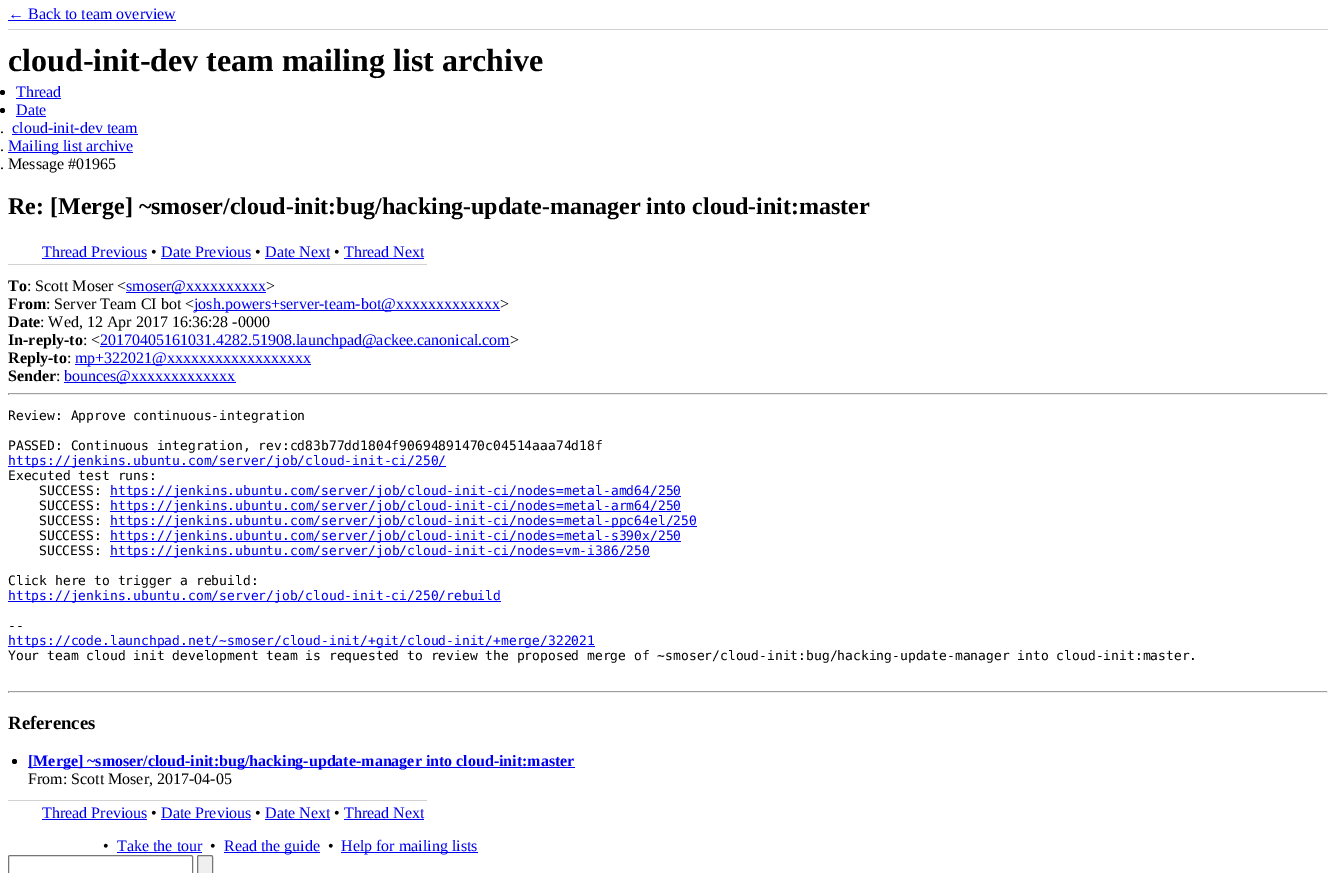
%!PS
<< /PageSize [1336 873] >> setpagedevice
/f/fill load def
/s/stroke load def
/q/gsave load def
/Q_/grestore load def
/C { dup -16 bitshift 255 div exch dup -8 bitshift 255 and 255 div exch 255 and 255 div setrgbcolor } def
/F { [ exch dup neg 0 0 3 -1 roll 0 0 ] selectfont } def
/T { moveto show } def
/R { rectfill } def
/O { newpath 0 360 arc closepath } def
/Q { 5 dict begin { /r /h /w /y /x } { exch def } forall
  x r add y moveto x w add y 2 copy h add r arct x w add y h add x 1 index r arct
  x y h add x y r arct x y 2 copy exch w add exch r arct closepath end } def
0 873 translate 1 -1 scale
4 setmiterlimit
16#FFFFFF C
0 0 1336 873 R
16#D2D2D2 C
8 29 1320 1 R
/LiberationSerif-Regular 16 F
16#0000EE C
(← Back to team overview) 8 19 T
8 20 168 1 R
/LiberationSerif-Bold 32 F
16#000000 C
(cloud-init-dev team mailing list archive) 8 71 T
2.5 92.5 2.5 O f
/LiberationSerif-Regular 16 F
16#0000EE C
(Thread) 16 97 T
16 98 45 1 R
16#000000 C
2.5 110.5 2.5 O f
16#0000EE C
(Date) 16 115 T
16 116 30 1 R
16#000000 C
(.) 0 133 T
16#0000EE C
(cloud-init-dev team) 12 133 T
12 134 126 1 R
16#000000 C
(.) 0 151 T
16#0000EE C
8 152 125 1 R
(Mailing list archive) 8 151 T
16#000000 C
(. Message #01965) 0 169 T
/LiberationSerif-Bold 24 F
(Re: [Merge] ~smoser/cloud-init:bug/hacking-update-manager into cloud-init:master) 8 214 T
16#D2D2D2 C
8 264 419 1 R
/LiberationSerif-Regular 16 F
16#0000EE C
(Thread Previous) 42 257 T
42 258 105 1 R
16#000000 C
(•) 151 257 T
16#0000EE C
(Date Previous) 161 257 T
161 258 90 1 R
16#000000 C
(•) 255 257 T
16#0000EE C
(Date Next) 265 257 T
265 258 65 1 R
16#000000 C
(•) 334 257 T
16#0000EE C
(Thread Next) 344 257 T
344 258 80 1 R
/LiberationSerif-Bold 16 F
16#000000 C
(To) 8 291 T
/LiberationSerif-Regular 16 F
(: Scott Moser <) 27 291 T
16#0000EE C
126 292 140 1 R
(smoser@xxxxxxxxxx) 126 291 T
16#000000 C
(>) 266 291 T
/LiberationSerif-Bold 16 F
(From) 8 309 T
/LiberationSerif-Regular 16 F
(: Server Team CI bot <) 46 309 T
16#0000EE C
194 310 306 1 R
(josh.powers+server-team-bot@xxxxxxxxxxxxx) 194 309 T
16#000000 C
(>) 500 309 T
/LiberationSerif-Bold 16 F
(Date) 8 327 T
/LiberationSerif-Regular 16 F
(: Wed, 12 Apr 2017 16:36:28 -0000) 40 327 T
/LiberationSerif-Bold 16 F
(In-reply-to) 8 345 T
/LiberationSerif-Regular 16 F
(: <) 83 345 T
16#0000EE C
100 346 410 1 R
(20170405161031.4282.51908.launchpad@ackee.canonical.com) 100 345 T
16#000000 C
(>) 510 345 T
/LiberationSerif-Bold 16 F
(Reply-to) 8 363 T
/LiberationSerif-Regular 16 F
(:) 67 363 T
16#0000EE C
75 364 236 1 R
(mp+322021@xxxxxxxxxxxxxxxxxx) 75 363 T
/LiberationSerif-Bold 16 F
16#000000 C
(Sender) 8 381 T
/LiberationSerif-Regular 16 F
(:) 56 381 T
16#0000EE C
64 382 172 1 R
(bounces@xxxxxxxxxxxxx) 64 381 T
16#9F9F9F C
8 393 1320 1 R
16#EEEEEE C
1327 393 1 2 R
8 394 1320 1 R
16#9F9F9F C
8 393 1 2 R
/DejaVuSansMono-Regular 13 F
16#000000 C
(Review: Approve continuous-integration) 8 420 T
(PASSED: Continuous integration, rev:cd83b77dd1804f90694891470c04514aaa74d18f) 8 450 T
16#0000EE C
8 466 438 1 R
(https://jenkins.ubuntu.com/server/job/cloud-init-ci/250/) 8 465 T
16#000000 C
(Executed test runs:) 8 480 T
(SUCCESS:) 39 495 T
16#0000EE C
110 496 571 1 R
(https://jenkins.ubuntu.com/server/job/cloud-init-ci/nodes=metal-amd64/250) 110 495 T
16#000000 C
(SUCCESS:) 39 510 T
16#0000EE C
110 511 571 1 R
(https://jenkins.ubuntu.com/server/job/cloud-init-ci/nodes=metal-arm64/250) 110 510 T
16#000000 C
(SUCCESS:) 39 525 T
16#0000EE C
110 526 587 1 R
(https://jenkins.ubuntu.com/server/job/cloud-init-ci/nodes=metal-ppc64el/250) 110 525 T
16#000000 C
(SUCCESS:) 39 540 T
16#0000EE C
110 541 571 1 R
(https://jenkins.ubuntu.com/server/job/cloud-init-ci/nodes=metal-s390x/250) 110 540 T
16#000000 C
(SUCCESS:) 39 555 T
16#0000EE C
110 556 540 1 R
(https://jenkins.ubuntu.com/server/job/cloud-init-ci/nodes=vm-i386/250) 110 555 T
16#000000 C
(Click here to trigger a rebuild:) 8 585 T
16#0000EE C
8 601 493 1 R
(https://jenkins.ubuntu.com/server/job/cloud-init-ci/250/rebuild) 8 600 T
16#000000 C
(--) 8 630 T
16#0000EE C
8 646 587 1 R
(https://code.launchpad.net/~smoser/cloud-init/+git/cloud-init/+merge/322021) 8 645 T
16#000000 C
(Your team cloud init development team is requested to review the proposed merge of ~smoser/cloud-init:bug/hacking-update-manager into cloud-init:master.) 8 660 T
16#9F9F9F C
8 691 1320 1 R
16#EEEEEE C
1327 691 1 2 R
8 692 1320 1 R
16#9F9F9F C
8 691 1 2 R
/LiberationSerif-Bold 18.75 F
16#000000 C
(References) 8 729 T
14.5 761.5 2.5 O f
16#0000EE C
28 767 547 1 R
/LiberationSerif-Bold 16 F
([Merge] ~smoser/cloud-init:bug/hacking-update-manager into cloud-init:master) 28 766 T
/LiberationSerif-Regular 16 F
16#000000 C
(From: Scott Moser, 2017-04-05) 28 784 T
16#D2D2D2 C
8 800 419 1 R
16#0000EE C
(Thread Previous) 42 818 T
42 819 105 1 R
16#000000 C
(•) 151 818 T
16#0000EE C
(Date Previous) 161 818 T
161 819 90 1 R
16#000000 C
(•) 255 818 T
16#0000EE C
(Date Next) 265 818 T
265 819 65 1 R
16#000000 C
(•) 334 818 T
16#0000EE C
(Thread Next) 344 818 T
344 819 80 1 R
16#000000 C
(•) 103 851 T
16#0000EE C
(Take the tour) 117 851 T
117 852 85 1 R
16#000000 C
(•) 210 851 T
16#0000EE C
224 852 96 1 R
(Read the guide) 224 851 T
16#000000 C
(•) 328 851 T
16#0000EE C
341 852 137 1 R
(Help for mailing lists) 341 851 T
16#767676 C
8.5 855.5 184 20 1.5 Q s
16#EFEFEF C
197.5 855.5 15 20 1.5 Q q f Q_
16#767676 C
s
showpage
